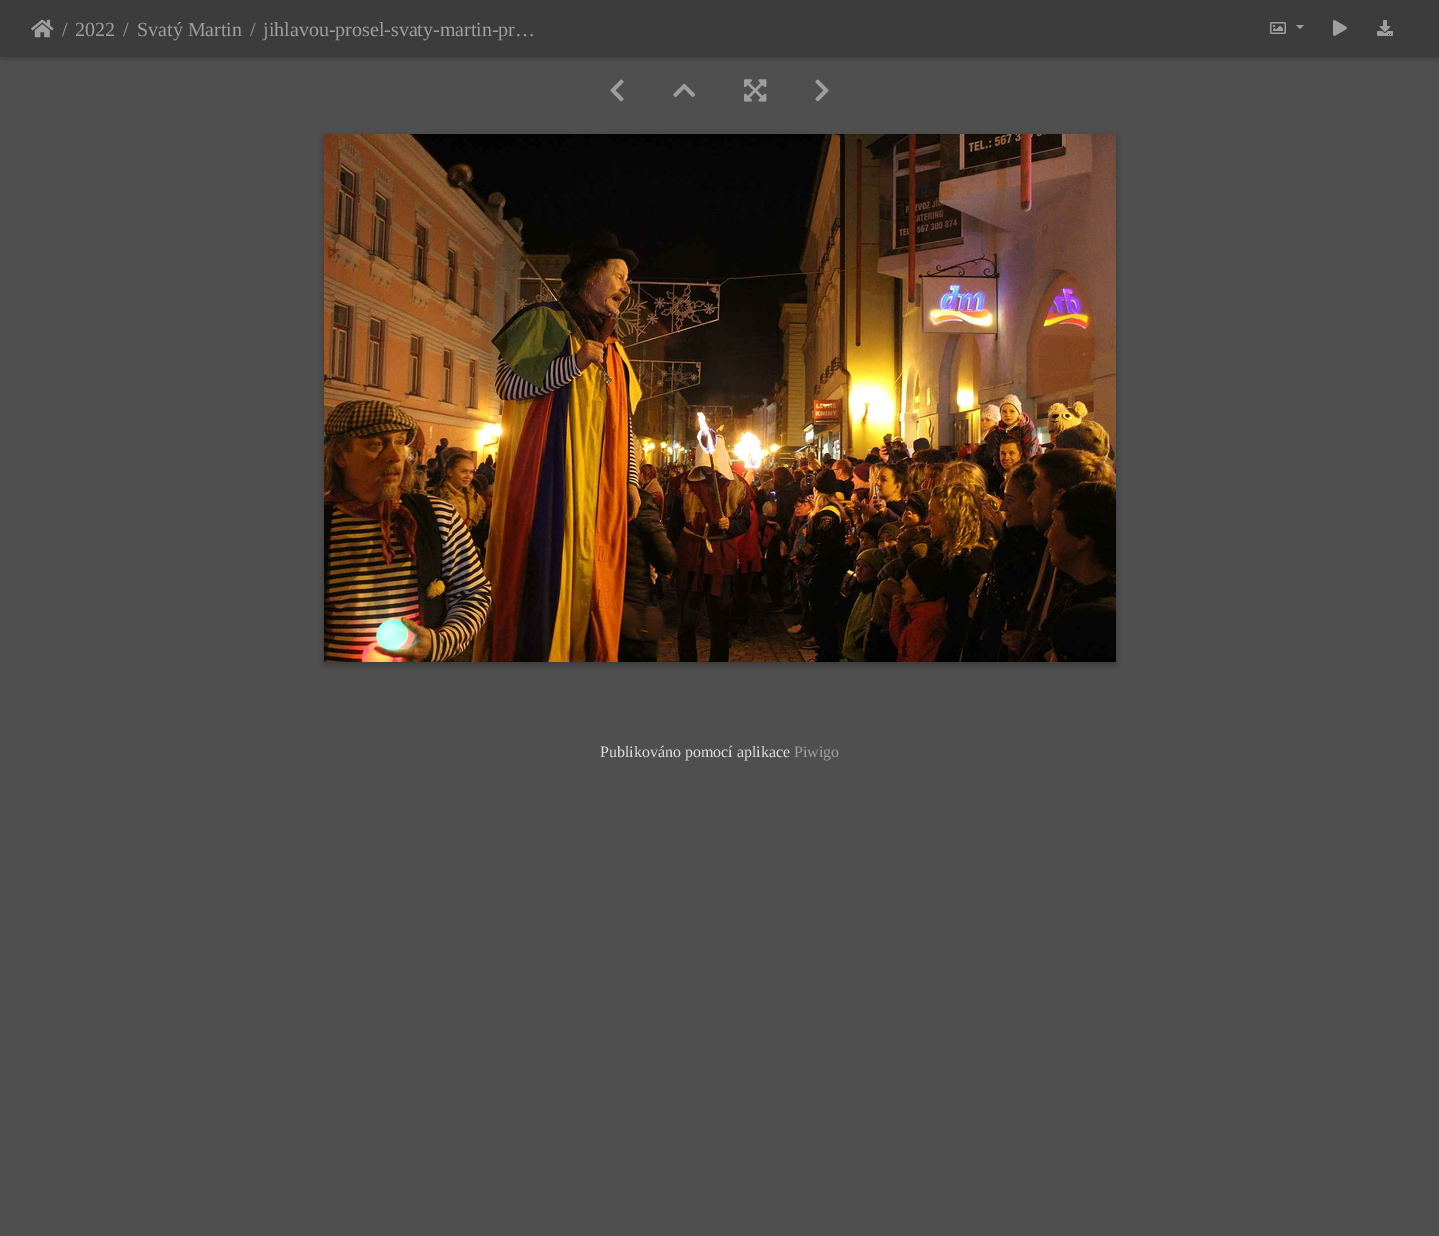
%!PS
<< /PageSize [1439 1236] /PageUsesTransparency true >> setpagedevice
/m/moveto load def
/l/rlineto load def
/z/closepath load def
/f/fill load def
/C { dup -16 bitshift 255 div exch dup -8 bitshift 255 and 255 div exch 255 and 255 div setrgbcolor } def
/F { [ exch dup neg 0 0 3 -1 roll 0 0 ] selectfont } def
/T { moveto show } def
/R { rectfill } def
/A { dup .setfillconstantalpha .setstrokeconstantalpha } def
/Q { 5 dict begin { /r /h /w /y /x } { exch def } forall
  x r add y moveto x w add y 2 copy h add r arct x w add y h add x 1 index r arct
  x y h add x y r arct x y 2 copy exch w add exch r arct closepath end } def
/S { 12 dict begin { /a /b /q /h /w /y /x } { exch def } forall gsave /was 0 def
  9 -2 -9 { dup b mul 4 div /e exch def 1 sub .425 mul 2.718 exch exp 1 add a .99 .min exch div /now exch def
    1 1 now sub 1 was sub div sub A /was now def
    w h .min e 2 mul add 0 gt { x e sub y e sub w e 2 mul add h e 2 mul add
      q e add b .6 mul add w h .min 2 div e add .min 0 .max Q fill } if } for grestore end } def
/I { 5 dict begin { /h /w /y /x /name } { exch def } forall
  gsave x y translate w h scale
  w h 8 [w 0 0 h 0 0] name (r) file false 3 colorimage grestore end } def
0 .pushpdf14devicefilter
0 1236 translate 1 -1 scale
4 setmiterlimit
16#4F4F4F C
0 0 1439 1236 R
16#000000 C
1 4 1437 55 0 2.5 .2 S
16#3C3C3C C
0 0 1439 57 R
(1.rgb) 31 19 23 19 I
/LiberationSerif-Regular 20 F
16#9E9E9E C
(/) 62 36 T
(2022) 75 36 T
(/) 123 36 T
(Svatý Martin) 137 36 T
(/) 250 36 T
(jihlavou-prosel-svaty-martin-pr…) 263 36 T
(2.rgb) 1270 22 16 12 I
1296 25 m 8 0 l -4 4 l z f
(3.rgb) 1333 20 14 16 I
(4.rgb) 1377 20 16 16 I
(5.rgb) 610 79 14 23 I
(6.rgb) 673 83 22 14 I
(7.rgb) 744 79 23 23 I
(8.rgb) 815 79 14 23 I
16#000000 C
324 137 792 528 0 3 .23 S
(9.rgb) 324 134 792 528 I
/LiberationSerif-Regular 16 F
16#DBDBDB C
(Publikováno pomocí aplikace) 600 757 T
16#9E9E9E C
(Piwigo) 794 757 T
.poppdf14devicefilter showpage
